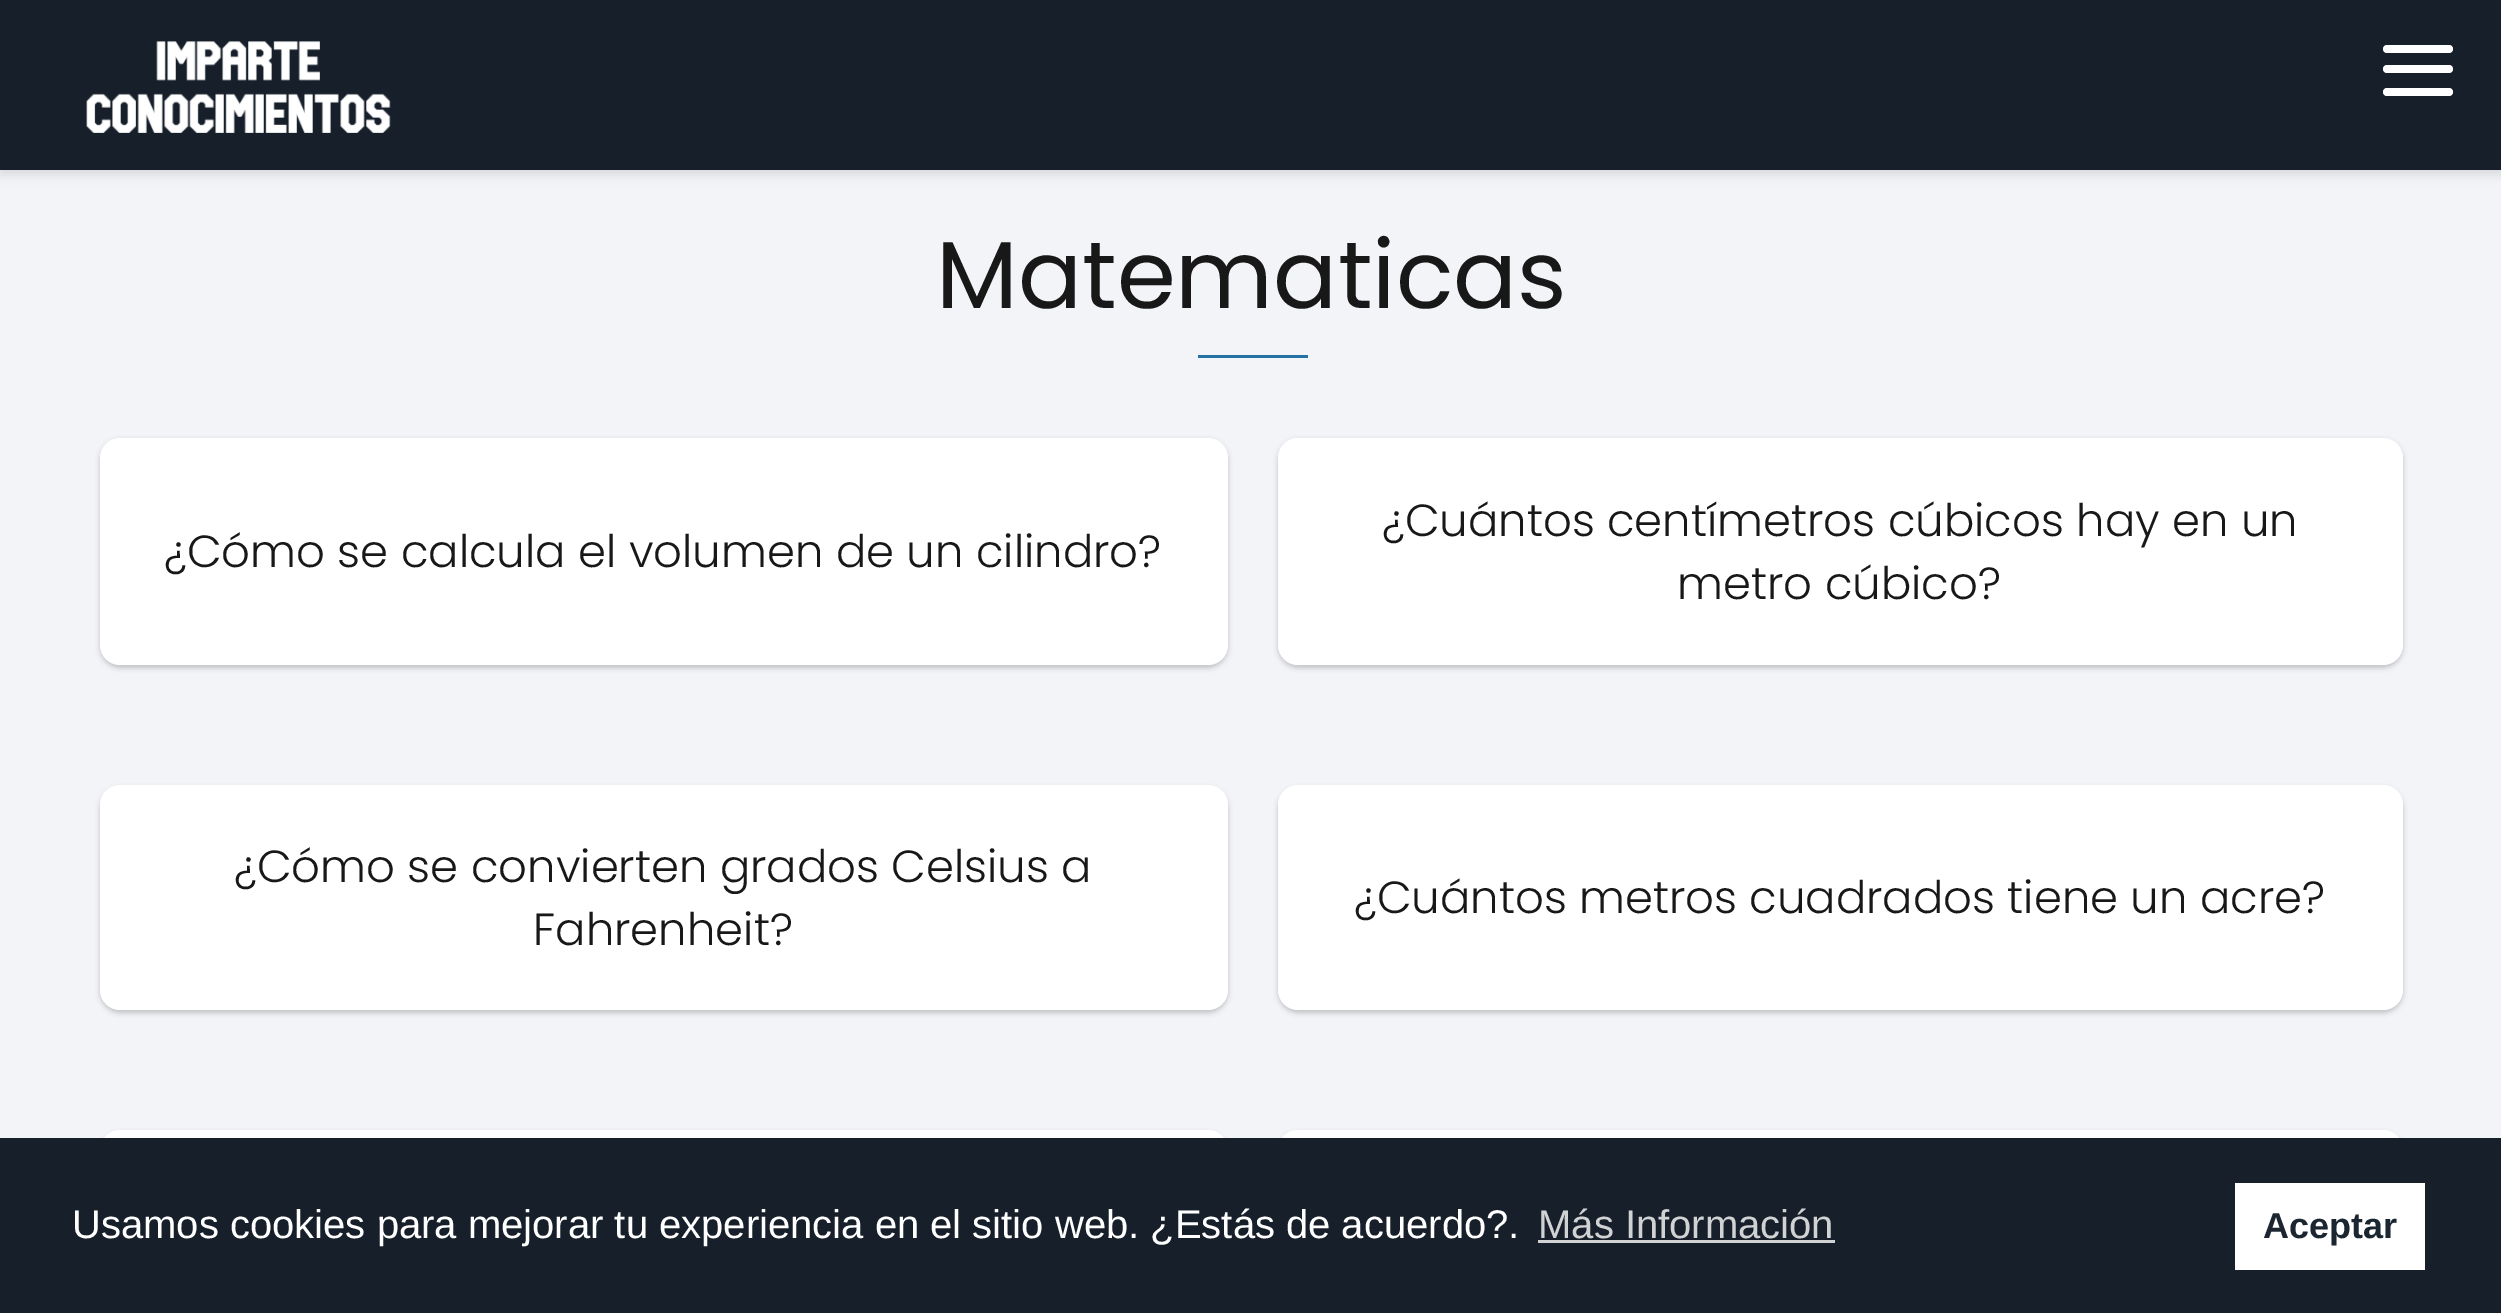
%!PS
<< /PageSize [2501 1313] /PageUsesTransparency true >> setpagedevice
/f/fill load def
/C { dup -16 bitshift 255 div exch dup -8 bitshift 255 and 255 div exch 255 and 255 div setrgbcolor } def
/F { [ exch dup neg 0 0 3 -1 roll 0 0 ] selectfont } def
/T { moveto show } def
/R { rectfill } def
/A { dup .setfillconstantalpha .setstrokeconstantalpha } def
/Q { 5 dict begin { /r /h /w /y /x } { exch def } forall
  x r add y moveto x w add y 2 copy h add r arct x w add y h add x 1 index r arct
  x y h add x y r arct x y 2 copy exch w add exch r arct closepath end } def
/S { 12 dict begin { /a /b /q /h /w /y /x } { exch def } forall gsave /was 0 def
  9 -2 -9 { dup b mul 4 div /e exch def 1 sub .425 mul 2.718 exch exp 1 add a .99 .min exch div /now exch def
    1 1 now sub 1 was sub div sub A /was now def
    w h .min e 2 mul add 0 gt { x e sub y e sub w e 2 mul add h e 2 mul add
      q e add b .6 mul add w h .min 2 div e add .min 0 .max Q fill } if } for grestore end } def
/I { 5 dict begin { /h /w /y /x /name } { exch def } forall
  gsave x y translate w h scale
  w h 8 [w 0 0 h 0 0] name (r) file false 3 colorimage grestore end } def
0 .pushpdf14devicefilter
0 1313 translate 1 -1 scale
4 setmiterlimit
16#F3F4F8 C
0 0 2501 1313 R
16#000000 C
0 5 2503 170 0 5 .1 S
16#17202A C
0 0 2501 170 R
(1.rgb) 86 41 305 92 I
16#FFFFFF C
2383 45 70 8 4 Q f
2383 65 70 8 4 Q f
2383 88 70 8 4 Q f
/Poppins-Regular 95 F
16#181818 C
(Matematicas) 936 308 T
16#2471A3 C
1198 355 110 3 R
16#000000 C
100 440 1128 228 20 2.5 .2 S
16#FFFFFF C
100 438 1128 227 20 Q f
/Poppins-Light 45 F
16#181818 C
(¿Cómo se calcula el volumen de un cilindro?) 164 567 T
16#000000 C
1278 440 1125 228 20 2.5 .2 S
16#FFFFFF C
1278 438 1125 227 20 Q f
16#181818 C
(¿Cuántos centímetros cúbicos hay en un) 1382 536 T
(metro cúbico?) 1677 599 T
16#000000 C
100 788 1128 225 20 2.5 .2 S
16#FFFFFF C
100 785 1128 225 20 Q f
16#181818 C
(¿Cómo se convierten grados Celsius a) 234 882 T
(Fahrenheit?) 533 945 T
16#000000 C
1278 788 1125 225 20 2.5 .2 S
16#FFFFFF C
1278 785 1125 225 20 Q f
16#181818 C
(¿Cuántos metros cuadrados tiene un acre?) 1354 913 T
16#000000 C
100 1133 1128 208 20 2.5 .2 S
16#FFFFFF C
100 1130 1128 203 20 Q f
16#000000 C
1278 1133 1125 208 20 2.5 .2 S
16#FFFFFF C
1278 1130 1125 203 20 Q f
16#17202A C
0 1138 2501 175 R
/LiberationSans-Regular 40 F
16#FFFFFF C
(Usamos cookies para mejorar tu experiencia en el sitio web. ¿Estás de acuerdo?.) 72 1238 T
16#D1D2D4 C
(Más Información) 1538 1238 T
1538 1240 297 3 R
16#FFFFFF C
2235 1183 190 87 R
/LiberationSans-Bold 36 F
16#1B2631 C
(Aceptar) 2263 1238 T
.poppdf14devicefilter showpage
